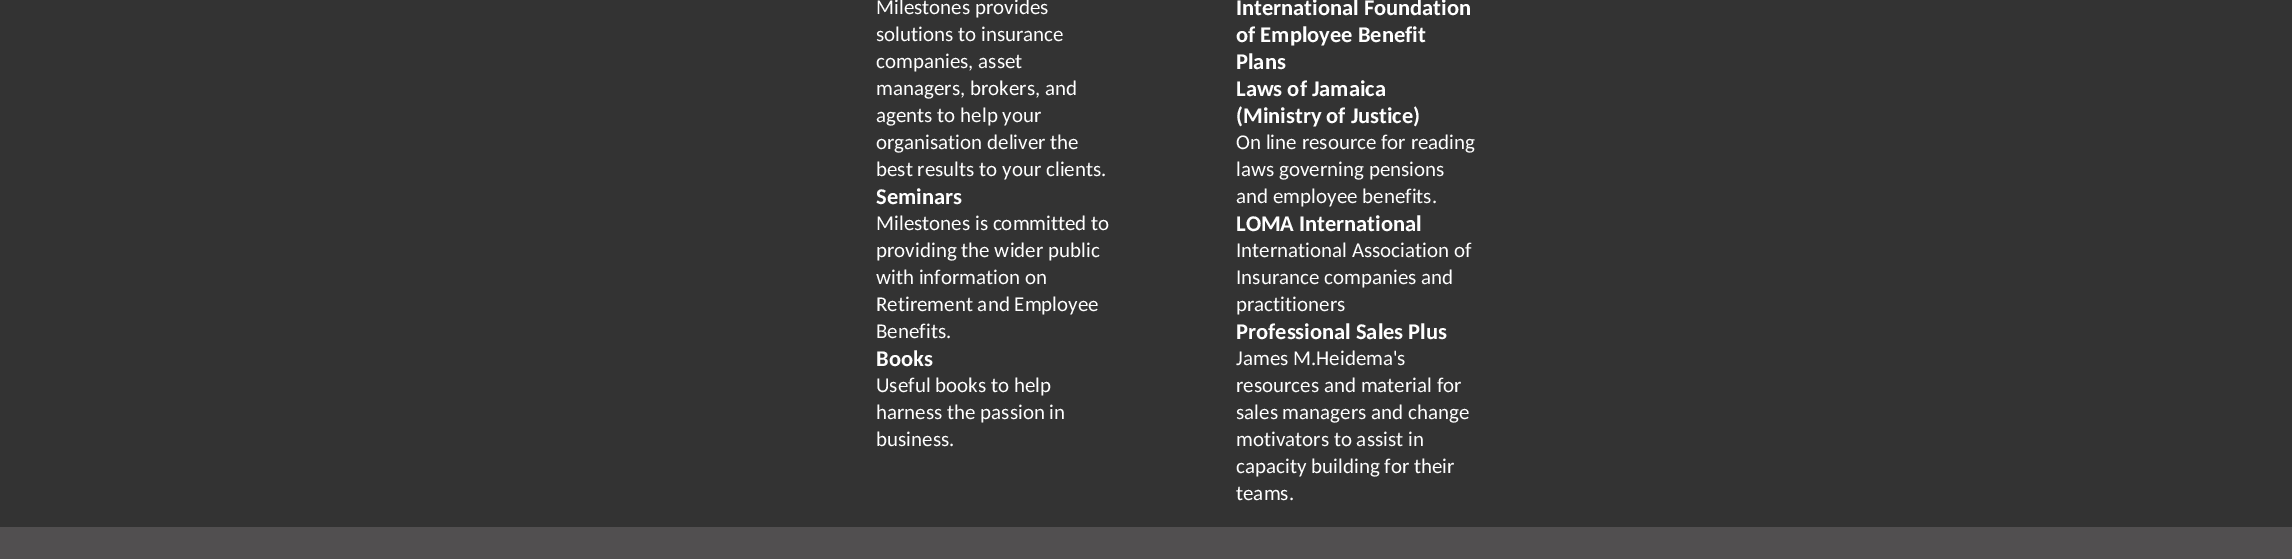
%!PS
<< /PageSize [2292 559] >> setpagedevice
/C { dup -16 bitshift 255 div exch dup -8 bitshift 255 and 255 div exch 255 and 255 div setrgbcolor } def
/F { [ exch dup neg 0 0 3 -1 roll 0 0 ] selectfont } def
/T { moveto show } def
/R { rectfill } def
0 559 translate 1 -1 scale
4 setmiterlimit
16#514F50 C
0 0 2292 559 R
16#333333 C
0 0 2292 527 R
/Carlito-Regular 21 F
16#FFFFFF C
(Milestones provides) 876 14 T
(solutions to insurance) 876 41 T
(companies, asset) 876 68 T
(managers, brokers, and) 876 95 T
(agents to help your) 876 122 T
(organisation deliver the) 876 149 T
(best results to your clients.) 876 176 T
/Carlito-Bold 22.5 F
(Seminars) 876 204 T
/Carlito-Regular 21 F
(Milestones is committed to) 876 230 T
(providing the wider public) 876 257 T
(with information on) 876 284 T
(Retirement and Employee) 876 311 T
(Benefits.) 876 338 T
/Carlito-Bold 22.5 F
(Books) 876 366 T
/Carlito-Regular 21 F
(Useful books to help) 876 392 T
(harness the passion in) 876 419 T
(business.) 876 446 T
/Carlito-Bold 22.5 F
(International Foundation) 1236 15 T
(of Employee Benefit) 1236 42 T
(Plans) 1236 69 T
(Laws of Jamaica) 1236 96 T
(\(Ministry of Justice\)) 1236 123 T
/Carlito-Regular 21 F
(On line resource for reading) 1236 149 T
(laws governing pensions) 1236 176 T
(and employee benefits.) 1236 203 T
/Carlito-Bold 22.5 F
(LOMA International) 1236 231 T
/Carlito-Regular 21 F
(International Association of) 1236 257 T
(Insurance companies and) 1236 284 T
(practitioners) 1236 311 T
/Carlito-Bold 22.5 F
(Professional Sales Plus) 1236 339 T
/Carlito-Regular 21 F
(James M.Heidema's) 1236 365 T
(resources and material for) 1236 392 T
(sales managers and change) 1236 419 T
(motivators to assist in) 1236 446 T
(capacity building for their) 1236 473 T
(teams.) 1236 500 T
showpage
